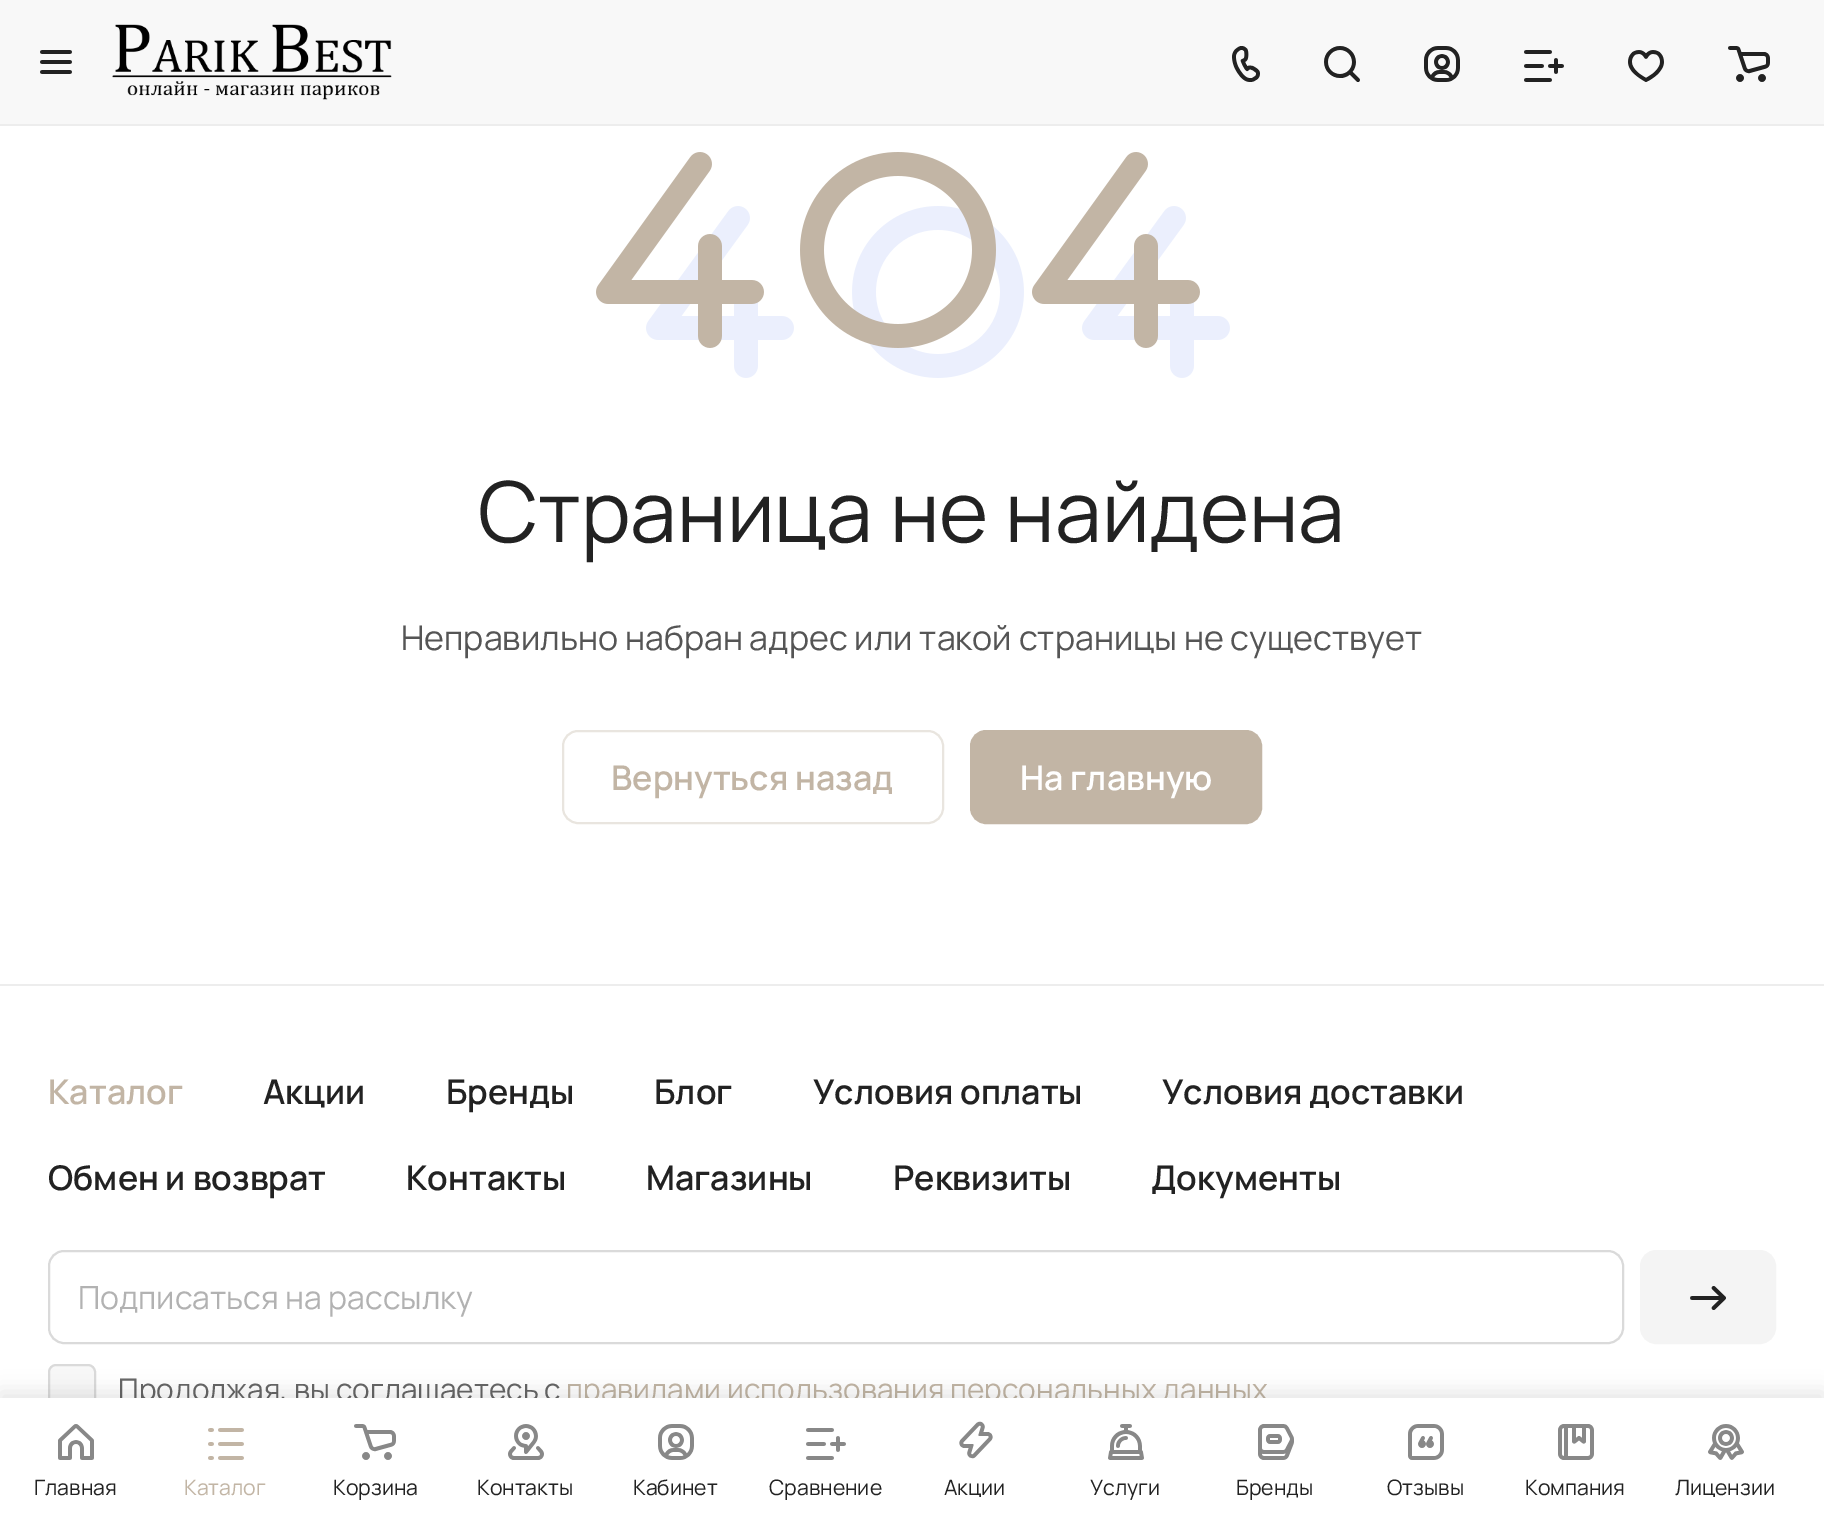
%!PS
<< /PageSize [1824 1519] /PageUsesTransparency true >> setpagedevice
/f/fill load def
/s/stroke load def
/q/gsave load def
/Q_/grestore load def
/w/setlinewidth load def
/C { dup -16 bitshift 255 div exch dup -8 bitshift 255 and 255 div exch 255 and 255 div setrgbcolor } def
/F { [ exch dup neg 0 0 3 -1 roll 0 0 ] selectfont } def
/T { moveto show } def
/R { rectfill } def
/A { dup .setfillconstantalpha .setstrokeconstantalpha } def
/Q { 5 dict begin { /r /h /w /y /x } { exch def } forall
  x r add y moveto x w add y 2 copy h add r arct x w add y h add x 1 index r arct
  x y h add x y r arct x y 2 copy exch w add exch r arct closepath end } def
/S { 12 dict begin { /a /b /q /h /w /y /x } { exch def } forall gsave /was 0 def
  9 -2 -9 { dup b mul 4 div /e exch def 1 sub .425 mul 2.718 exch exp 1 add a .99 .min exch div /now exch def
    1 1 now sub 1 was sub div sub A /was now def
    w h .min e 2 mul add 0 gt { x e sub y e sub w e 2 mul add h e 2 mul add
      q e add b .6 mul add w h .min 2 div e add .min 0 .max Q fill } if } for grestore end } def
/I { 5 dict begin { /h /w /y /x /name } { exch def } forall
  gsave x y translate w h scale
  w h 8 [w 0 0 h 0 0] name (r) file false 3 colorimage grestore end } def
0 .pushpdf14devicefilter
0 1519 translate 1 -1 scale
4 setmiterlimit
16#FFFFFF C
0 0 1824 1519 R
16#EDEDED C
0 124 1824 2 R
16#F8F8F8 C
0 0 1824 124 R
(1.rgb) 40 50 32 24 I
(2.rgb) 112 24 280 76 I
(3.rgb) 1232 46 28 36 I
(4.rgb) 1324 46 36 36 I
(5.rgb) 1424 46 36 36 I
(6.rgb) 1524 50 40 32 I
(7.rgb) 1628 50 36 32 I
(8.rgb) 1728 46 42 36 I
(9.rgb) 596 152 634 226 I
/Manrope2-ExtraLight 84 F
16#222222 C
(Страница не найдена) 478 542 T
/Manrope2-ExtraLight 34 F
16#555555 C
(Неправильно набран адрес или такой страницы не существует) 401 650 T
16#E9E5DF C
2 w
563 731 380 92 15 Q s
/Manrope-ExtraLight 34 F
16#C2B5A5 C
(Вернуться назад) 611 790 T
971 731 290 92 15 Q q f Q_
s
16#FFFFFF C
(На главную) 1020 790 T
16#EDEDED C
0 984 1824 2 R
16#C2B5A5 C
(Каталог) 48 1104 T
16#222222 C
(Акции) 263 1104 T
(Бренды) 446 1104 T
(Блог) 654 1104 T
(Условия оплаты) 813 1104 T
(Условия доставки) 1162 1104 T
(Обмен и возврат) 48 1190 T
(Контакты) 406 1190 T
(Магазины) 646 1190 T
(Реквизиты) 893 1190 T
(Документы) 1151 1190 T
16#DADADA C
49 1251 1574 92 15 Q s
/Manrope2-ExtraLight 32 F
16#B2B2B2 C
(Подписаться на рассылку) 78 1309 T
16#F4F4F4 C
1641 1251 134 92 15 Q q f Q_
s
(10.rgb) 1690 1286 36 24 I
16#F8F8F8 C
49 1365 46 46 7 Q q f Q_
16#DADADA C
s
/Manrope2-ExtraLight 29.75 F
16#666666 C
(Продолжая, вы соглашаетесь с) 118 1400 T
16#C2B5A5 C
(правилами использования персональных данных) 566 1400 T
16#000000 C
0 1392 1824 122 0 10 .1 S
16#FFFFFF C
0 1398 1824 121 R
(11.rgb) 58 1424 36 36 I
/Manrope2-ExtraLight 21.25 F
16#222222 C
(Главная) 34 1495 T
(12.rgb) 208 1428 36 32 I
16#C2B5A5 C
(Каталог) 184 1495 T
(13.rgb) 354 1424 42 36 I
16#222222 C
(Корзина) 333 1495 T
(14.rgb) 508 1424 36 36 I
(Контакты) 477 1495 T
(15.rgb) 658 1424 36 36 I
(Кабинет) 633 1495 T
(16.rgb) 806 1428 40 32 I
(Сравнение) 769 1495 T
(17.rgb) 959 1421 34 38 I
(Акции) 944 1495 T
(18.rgb) 1108 1424 36 36 I
(Услуги) 1090 1495 T
(19.rgb) 1258 1424 36 36 I
(Бренды) 1236 1495 T
(20.rgb) 1408 1424 36 36 I
(Отзывы) 1387 1495 T
(21.rgb) 1558 1424 36 36 I
(Компания) 1525 1495 T
(22.rgb) 1708 1424 36 36 I
(Лицензии) 1675 1495 T
.poppdf14devicefilter showpage
